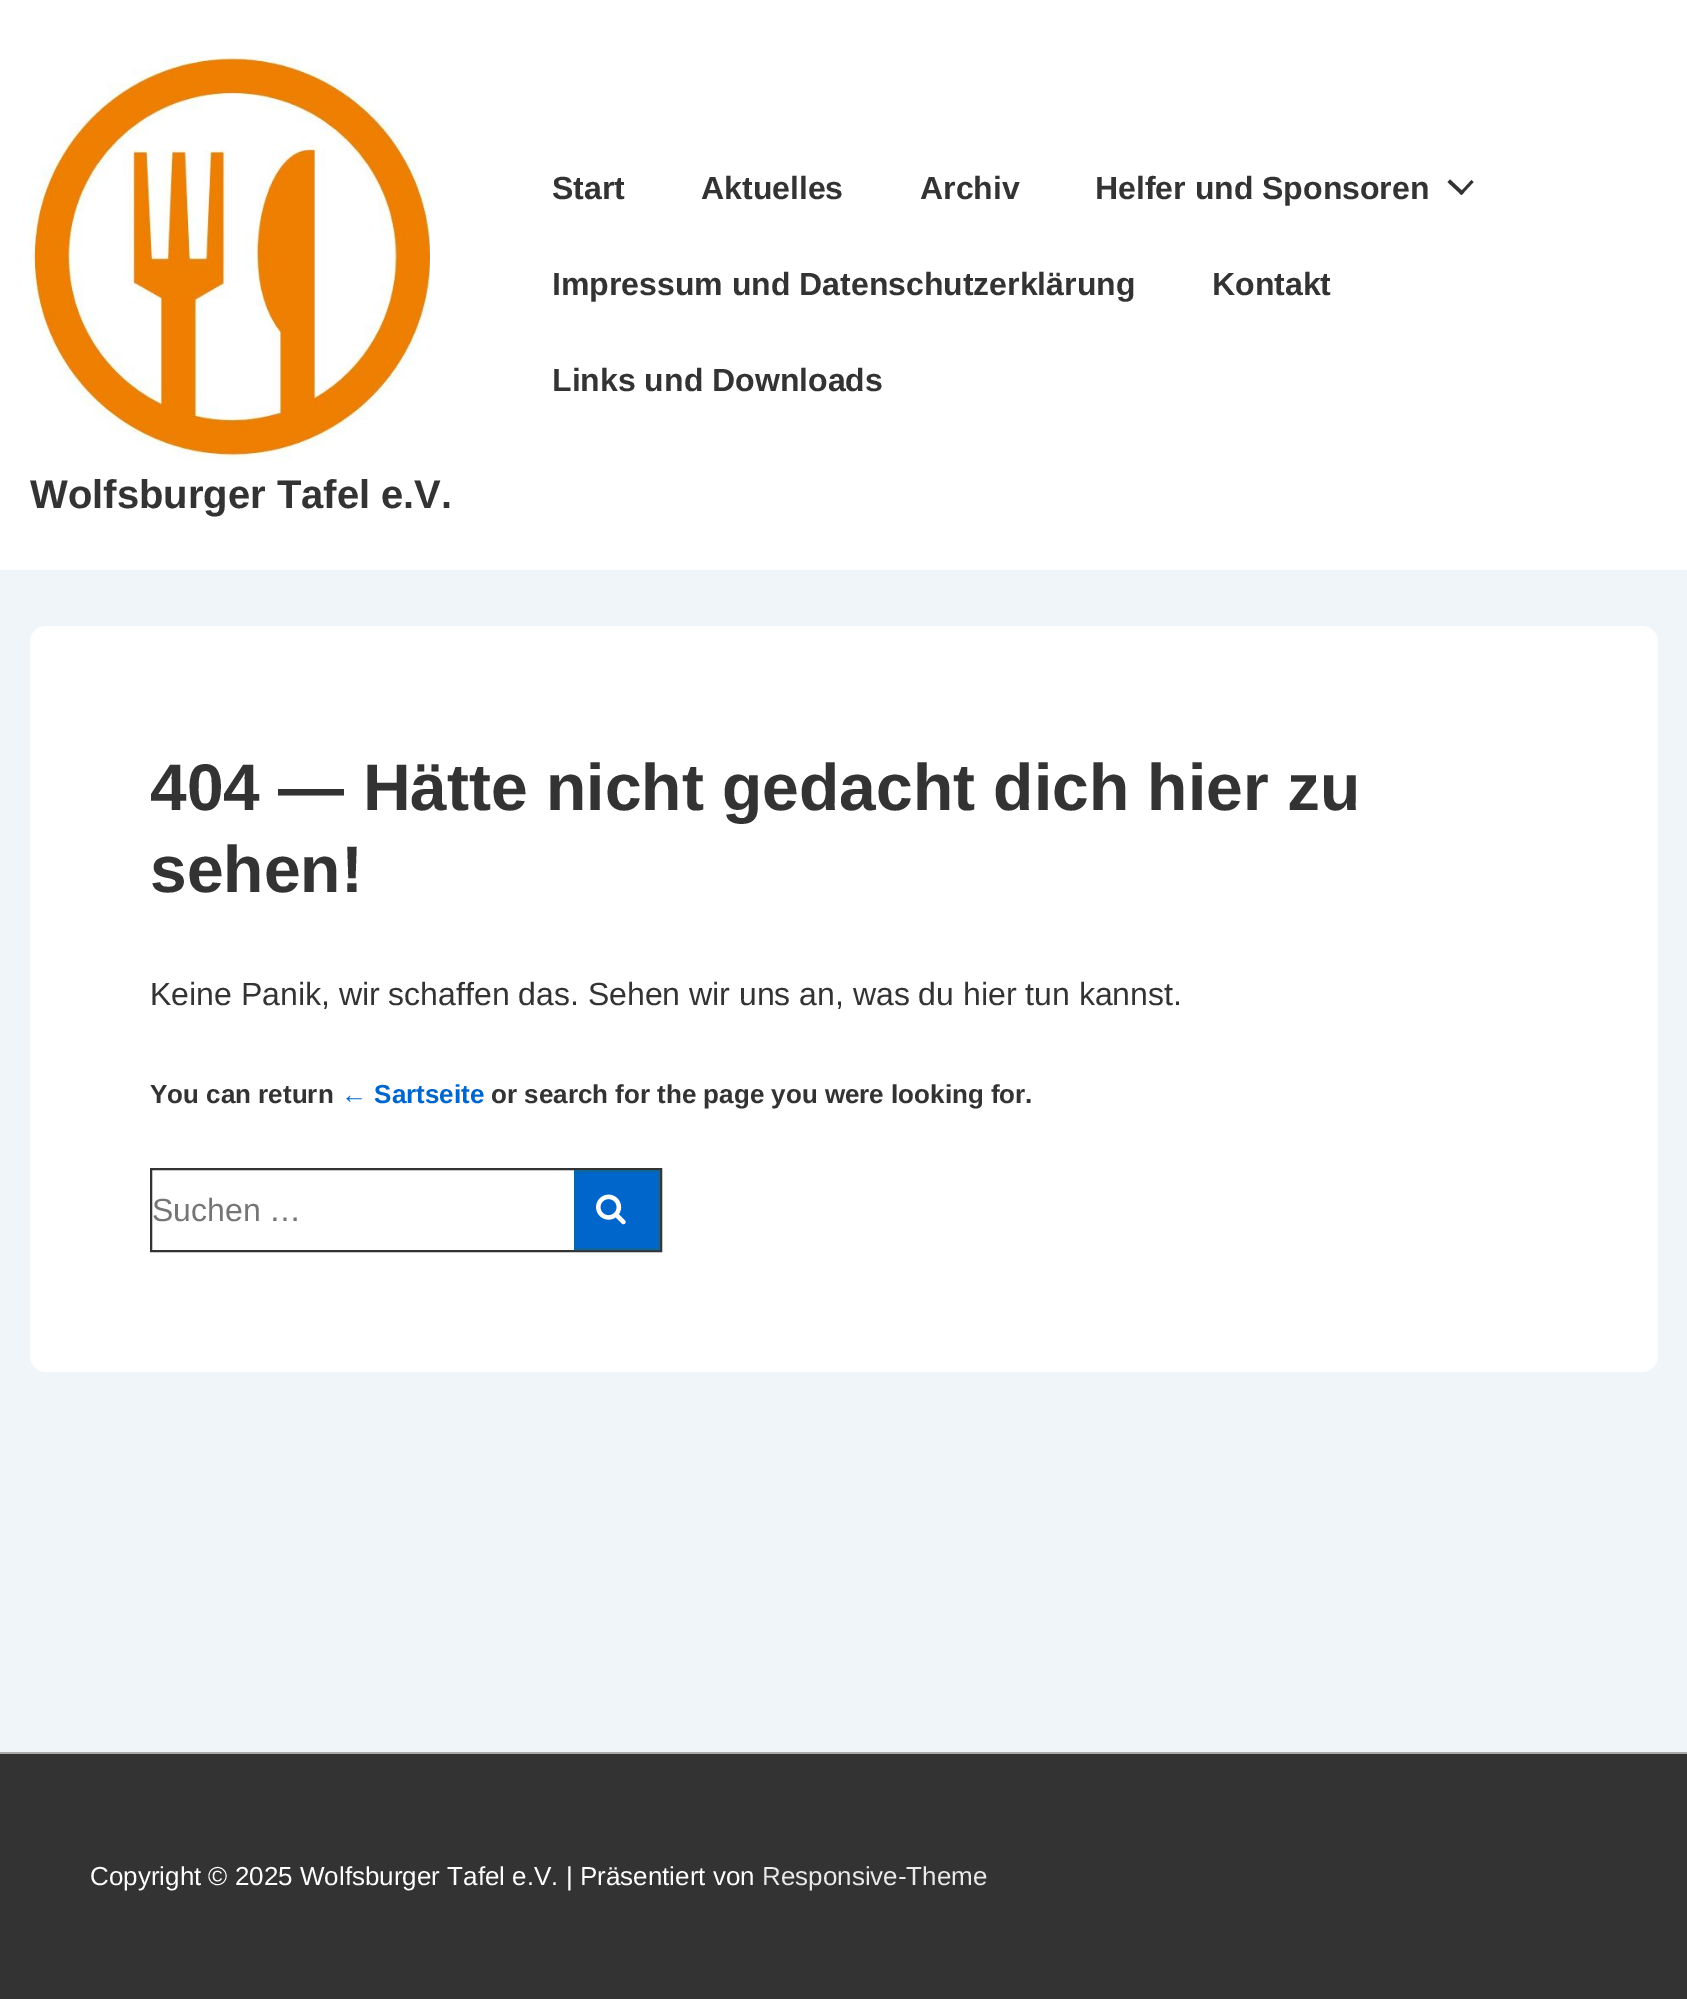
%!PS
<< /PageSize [1687 1999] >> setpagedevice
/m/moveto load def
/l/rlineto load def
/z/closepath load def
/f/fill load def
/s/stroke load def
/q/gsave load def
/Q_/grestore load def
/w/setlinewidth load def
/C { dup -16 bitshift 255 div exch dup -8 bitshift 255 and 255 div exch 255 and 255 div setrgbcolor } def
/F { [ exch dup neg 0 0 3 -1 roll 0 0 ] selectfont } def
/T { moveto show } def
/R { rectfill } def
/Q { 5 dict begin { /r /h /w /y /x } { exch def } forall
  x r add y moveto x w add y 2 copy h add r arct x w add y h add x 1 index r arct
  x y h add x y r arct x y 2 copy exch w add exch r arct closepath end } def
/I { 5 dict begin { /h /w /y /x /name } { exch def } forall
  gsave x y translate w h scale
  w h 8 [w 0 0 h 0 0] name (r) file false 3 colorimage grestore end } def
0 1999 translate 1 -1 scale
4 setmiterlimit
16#F0F5FA C
0 0 1687 1999 R
16#FFFFFF C
0 0 1687 570 R
/LiberationSans-Bold 32 F
16#333333 C
(Start) 552 199 T
(Aktuelles) 701 199 T
(Archiv) 920 199 T
(Helfer und Sponsoren) 1095 199 T
1447.5 182 m 2.5 -2.5 l 14 13 l -2.5 2.5 l z f
1459.5 193 m 12 -13 l 2 2 l -12 13 l z f
(Impressum und Datenschutzerklärung) 552 295 T
(Kontakt) 1212 295 T
(Links und Downloads) 552 391 T
(1.rgb) 30 56 400 404 I
/LiberationSans-Bold 40 F
(Wolfsburger Tafel e.V.) 30 508 T
16#FFFFFF C
30 626 1628 746 16 Q f
/LiberationSans-Bold 66 F
16#333333 C
(404 — Hätte nicht gedacht dich hier zu) 150 810 T
(sehen!) 150 892 T
/LiberationSans-Regular 32 F
(Keine Panik, wir schaffen das. Sehen wir uns an, was du hier tun kannst.) 150 1005 T
/LiberationSans-Bold 26 F
(You can return) 150 1103 T
16#0066CC C
(← Sartseite) 341 1103 T
16#333333 C
(or search for the page you were looking for.) 491 1103 T
2 w
151 1169 510 82 rectstroke
/LiberationSans-Regular 32 F
16#757575 C
(Suchen …) 152 1221 T
16#0066CC C
575 1171 m 84 0 l 0 78 l -84 0 l z q f Q_
16#10659C C
s
(2.rgb) 596 1194 30 31 I
16#333333 C
0 1754 1687 245 R
16#AAAAAA C
0 1752 1687 2 R
/LiberationSans-Regular 26 F
16#FFFFFF C
(Copyright © 2025 Wolfsburger Tafel e.V. | Präsentiert von) 90 1885 T
16#EAEAEA C
(Responsive-Theme) 762 1885 T
showpage
